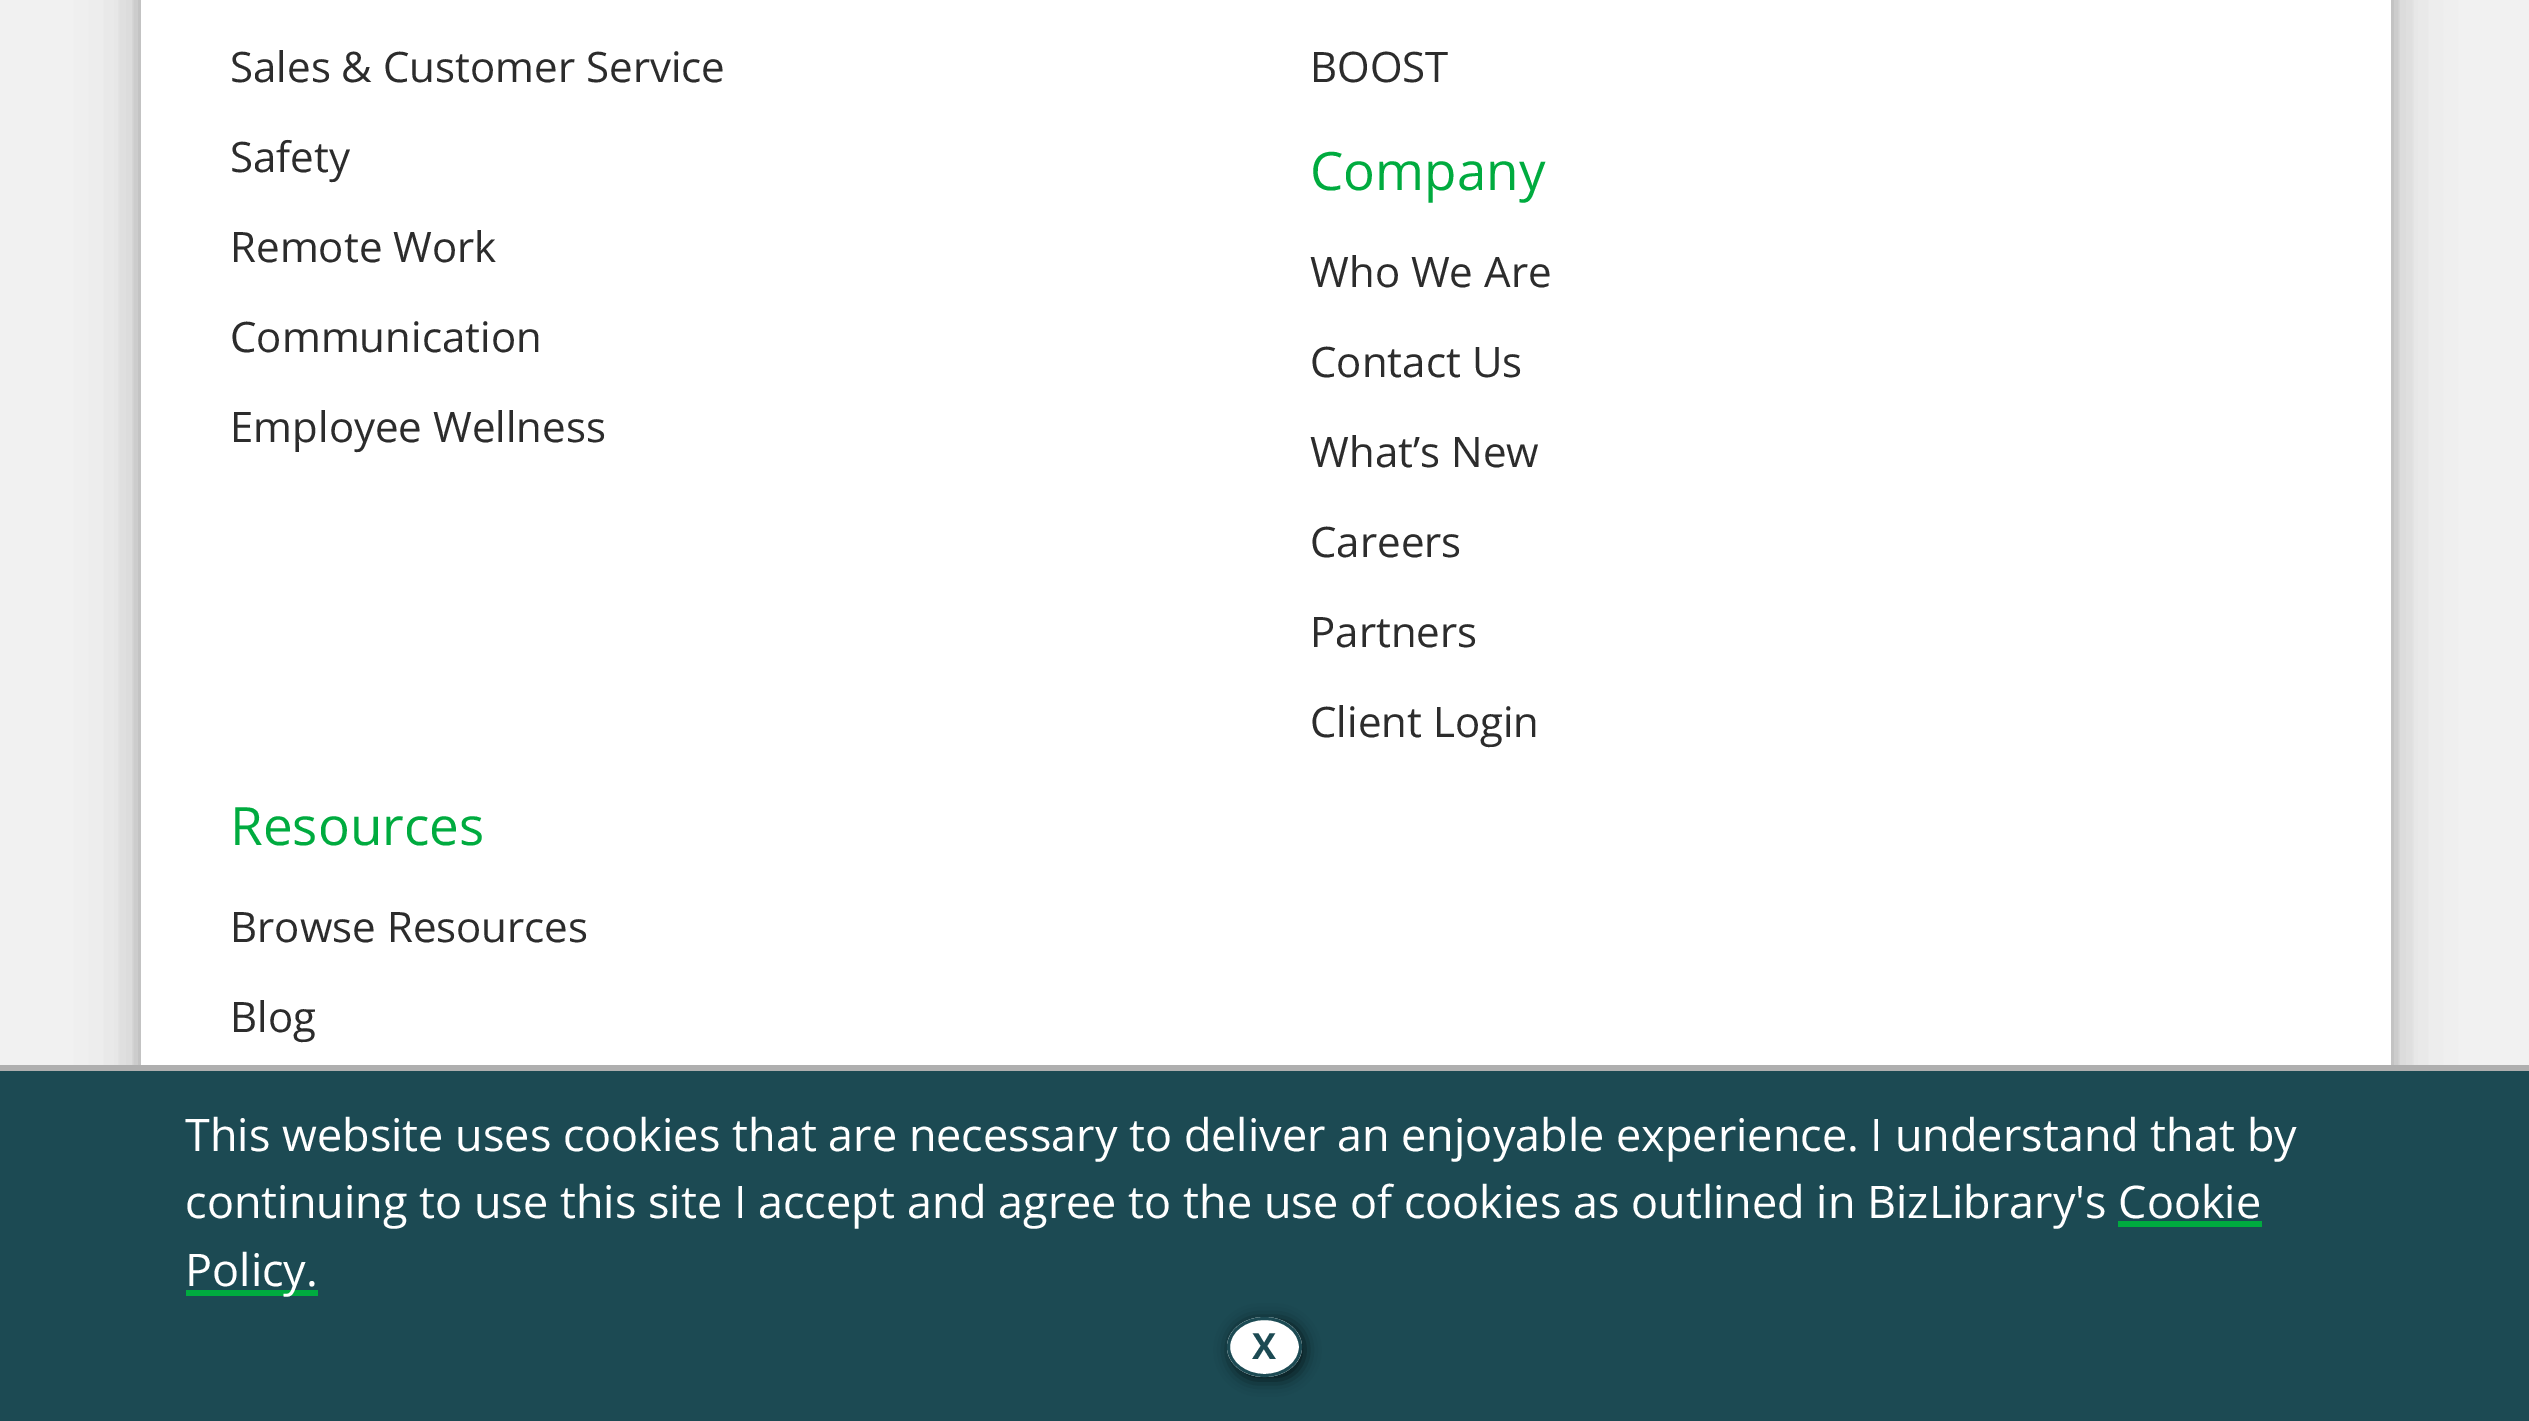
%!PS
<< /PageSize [2529 1421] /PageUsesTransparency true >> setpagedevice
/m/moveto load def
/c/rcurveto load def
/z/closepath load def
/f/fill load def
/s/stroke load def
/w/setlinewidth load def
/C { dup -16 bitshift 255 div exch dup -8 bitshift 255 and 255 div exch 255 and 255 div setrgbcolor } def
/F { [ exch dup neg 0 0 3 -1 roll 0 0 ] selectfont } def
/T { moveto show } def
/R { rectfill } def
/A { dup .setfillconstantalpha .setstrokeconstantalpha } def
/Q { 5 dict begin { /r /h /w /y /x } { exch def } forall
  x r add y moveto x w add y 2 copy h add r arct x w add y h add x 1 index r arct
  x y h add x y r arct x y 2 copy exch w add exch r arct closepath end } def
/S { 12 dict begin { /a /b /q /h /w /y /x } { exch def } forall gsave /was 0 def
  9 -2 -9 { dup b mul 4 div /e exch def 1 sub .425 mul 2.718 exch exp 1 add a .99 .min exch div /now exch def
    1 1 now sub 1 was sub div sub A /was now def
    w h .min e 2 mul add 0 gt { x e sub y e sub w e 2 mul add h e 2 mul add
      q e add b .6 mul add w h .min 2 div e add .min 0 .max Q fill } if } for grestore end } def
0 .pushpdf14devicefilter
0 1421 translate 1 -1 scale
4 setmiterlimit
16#F1F1F1 C
0 0 2529 1421 R
16#000000 C
141 -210 2250 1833 120 30 .19 S
141 -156 2250 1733 120 12 .2 S
16#FFFFFF C
141 0 2250 1065 R
/OpenSans-Regular 42 F
16#2C2C2C C
(Sales & Customer Service) 230 82 T
(Safety) 230 172 T
(Remote Work) 230 262 T
(Communication) 230 352 T
(Employee Wellness) 230 442 T
(BOOST) 1310 82 T
/OpenSans-Regular 53 F
16#00AB3F C
(Company) 1310 190 T
/OpenSans-Regular 42 F
16#2C2C2C C
(Who We Are) 1310 287 T
(Contact Us) 1310 377 T
(What’s New) 1310 467 T
(Careers) 1310 557 T
(Partners) 1310 647 T
(Client Login) 1310 737 T
/OpenSans-Regular 53 F
16#00AB3F C
(Resources) 230 845 T
/OpenSans-Regular 42 F
16#2C2C2C C
(Browse Resources) 230 942 T
(Blog) 230 1032 T
16#1C4A53 C
0 1071 2529 350 R
16#AFAFAF C
0 1065 2529 6 R
/OpenSans-Regular 45 F
16#FFFFFF C
(This website uses cookies that are necessary to deliver an enjoyable experience. I understand that by) 185 1151 T
(continuing to use this site I accept and agree to the use of cookies as outlined in BizLibrary's Cookie) 185 1218 T
16#00AB3F C
186 1290 132 6 R
16#FFFFFF C
(Policy.) 185 1286 T
16#00AB3F C
2118 1221 144 6 R
16#000000 C
1230 1320 75 60 30 7.5 .68 S
16#FFFFFF C
1264.5 1317 m 20.5 0 37.5 13.5 37.5 30 c 0 16.5 -17 30 -37.5 30 c -20.5 0 -37.5 -13.5 -37.5 -30 c 0 -16.5 17 -30 37.5 -30 c z f
16#1C4A53 C
3 w
1264.5 1318.5 m 20 0 36 13 36 28.5 c 0 15.5 -16 28.5 -36 28.5 c -20 0 -36 -13 -36 -28.5 c 0 -15.5 16 -28.5 36 -28.5 c z s
/OpenSans-Bold 36 F
(X) 1252 1359 T
.poppdf14devicefilter showpage
